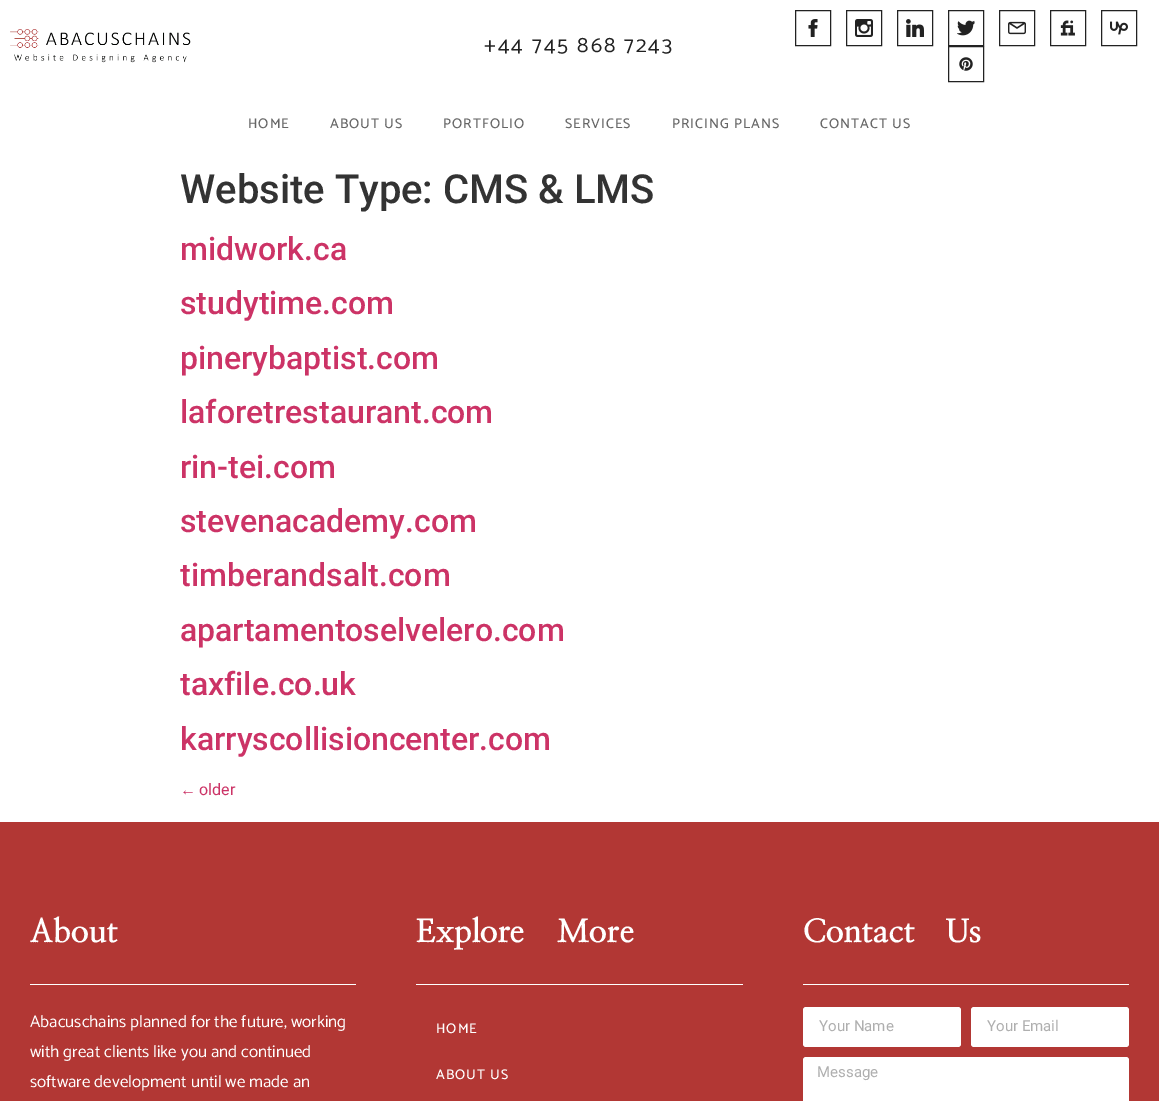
%!PS
<< /PageSize [1159 1101] >> setpagedevice
/m/moveto load def
/f/fill load def
/C { dup -16 bitshift 255 div exch dup -8 bitshift 255 and 255 div exch 255 and 255 div setrgbcolor } def
/F { [ exch dup neg 0 0 3 -1 roll 0 0 ] selectfont } def
/T { moveto show } def
/R { rectfill } def
/Q { 5 dict begin { /r /h /w /y /x } { exch def } forall
  x r add y moveto x w add y 2 copy h add r arct x w add y h add x 1 index r arct
  x y h add x y r arct x y 2 copy exch w add exch r arct closepath end } def
/I { 5 dict begin { /h /w /y /x /name } { exch def } forall
  gsave x y translate w h scale
  w h 8 [w 0 0 h 0 0] name (r) file false 3 colorimage grestore end } def
0 1101 translate 1 -1 scale
4 setmiterlimit
16#FFFFFF C
0 0 1159 1101 R
(1.rgb) 10 29 181 34 I
/Catamaran-Regular 22 F
16#222222 C
484 52 m 2 0 (+44 745 868 7243) ashow
795.5 10.5 35 35 rectstroke
(2.rgb) 808 19 10 18 I
846.5 10.5 35 35 rectstroke
(3.rgb) 855 19 18 18 I
897.5 10.5 35 35 rectstroke
(4.rgb) 906 19 18 18 I
948.5 10.5 35 35 rectstroke
(5.rgb) 957 20 18 16 I
999.5 10.5 35 35 rectstroke
(6.rgb) 1008 21 18 14 I
1050.5 10.5 35 35 rectstroke
(7.rgb) 1060 20 15 16 I
1101.5 10.5 35 35 rectstroke
(8.rgb) 1110 21 18 14 I
948.5 46.5 35 35 rectstroke
(9.rgb) 959 57 14 14 I
/Catamaran-Medium 14 F
16#666666 C
248 128 m 1 0 (HOME) ashow
330 128 m 1 0 (ABOUT US) ashow
443 128 m 1 0 (PORTFOLIO) ashow
565 128 m 1 0 (SERVICES) ashow
672 128 m 1 0 (PRICING PLANS) ashow
820 128 m 1 0 (CONTACT US) ashow
/Roboto-Medium 40 F
16#333333 C
(Website Type: CMS & LMS) 180 203 T
/Roboto-Medium 32 F
16#CC3366 C
(midwork.ca) 180 260 T
(studytime.com) 180 314 T
(pinerybaptist.com) 180 369 T
(laforetrestaurant.com) 180 423 T
(rin-tei.com) 180 478 T
(stevenacademy.com) 180 532 T
(timberandsalt.com) 180 586 T
(apartamentoselvelero.com) 180 641 T
(taxfile.co.uk) 180 695 T
(karryscollisioncenter.com) 180 750 T
/LiberationSans-Regular 16 F
(←) 180 795 T
/Roboto-Regular 16 F
(older) 199 795 T
16#B23734 C
0 822 1159 279 R
/NanumMyeongjo-ExtraBold 32 F
16#FFFFFF C
(About) 30 942 T
30 984 326 1 R
/Catamaran-Regular 17 F
(Abacuschains planned for the future, working) 30 1027 T
(with great clients like you and continued) 30 1057 T
(software development until we made an) 30 1087 T
/NanumMyeongjo-ExtraBold 32 F
(Explore More) 416 942 T
416 984 327 1 R
/Catamaran-Medium 14 F
436 1033 m 1 0 (HOME) ashow
436 1079 m 1 0 (ABOUT US) ashow
/NanumMyeongjo-ExtraBold 32 F
(Contact Us) 803 942 T
803 984 326 1 R
803 1007 158 40 3 Q f
/Roboto-Regular 15 F
16#AFAFAF C
(Your Name) 819 1031 T
16#FFFFFF C
971 1007 158 40 3 Q f
16#AFAFAF C
(Your Email) 987 1031 T
16#FFFFFF C
803 1057 326 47 3 Q f
16#AFAFAF C
(Message) 817 1077 T
showpage
